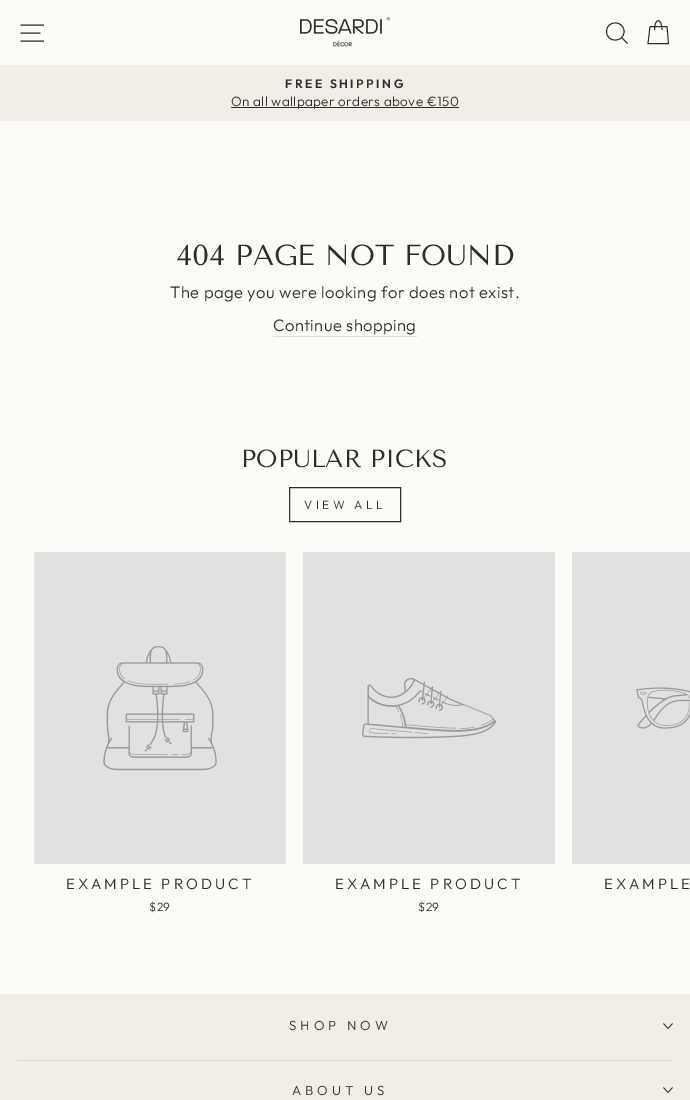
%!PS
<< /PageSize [690 1100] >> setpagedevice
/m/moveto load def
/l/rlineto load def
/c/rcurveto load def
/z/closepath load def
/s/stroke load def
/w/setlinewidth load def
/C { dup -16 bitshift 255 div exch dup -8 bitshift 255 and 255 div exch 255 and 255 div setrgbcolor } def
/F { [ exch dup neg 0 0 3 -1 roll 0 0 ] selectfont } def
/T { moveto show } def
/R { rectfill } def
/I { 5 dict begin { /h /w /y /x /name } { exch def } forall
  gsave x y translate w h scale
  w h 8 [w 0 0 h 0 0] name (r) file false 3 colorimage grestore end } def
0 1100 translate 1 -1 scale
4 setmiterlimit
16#FCFBF7 C
0 0 690 1100 R
16#2D2D2D C
.9 w
20.5 25 m 23.5 0 l 20.5 33 m 20 0 l 20.5 41 m 23.5 0 l s
(1.rgb) 300 17 90 30 I
624 31.5 m 0 11.5 -17.5 11.5 -17.5 0 c 0 -11.5 17.5 -11.5 17.5 0 c z 627.5 43.5 m -6 -6 l 654.5 30 m 0 -12.5 7.5 -12.5 7.5 0 c 650 26.5 m 17 0 l 1.5 17 l -20.5 0 l z s
16#F2EEE7 C
0 65 690 56 R
/Outfit-SemiBold 12.25 F
16#2D2D2D C
285 88 m 2.5 0 (FREE SHIPPING) ashow
231 107 228 1 R
/Outfit-Light 13.5 F
231 106 m .4 0 (On all wallpaper orders above €150) ashow
/TenorSans-Regular 28.9 F
(404 PAGE NOT FOUND) 176 265 T
/Outfit-Light 16.6 F
170 298 m .4 0 (The page you were looking for does not exist.) ashow
16#DDDCD9 C
273 336 144 1 R
16#2D2D2D C
273 331 m .4 0 (Continue shopping) ashow
/TenorSans-Regular 24.75 F
(POPULAR PICKS) 241 467 T
1 w
289.5 487.5 111 34 rectstroke
/Outfit-Light 12 F
304 509 m 3.5 0 (VIEW ALL) ashow
16#E1E1E1 C
34 552 252 312 R
(2.rgb) 103 646 114 125 I
/Outfit-Light 15 F
16#2D2D2D C
66 889 m 3 0 (EXAMPLE PRODUCT) ashow
/Outfit-Light 12 F
149 911 m .4 0 ($29) ashow
16#E1E1E1 C
303 552 252 312 R
(3.rgb) 362 678 135 61 I
/Outfit-Light 15 F
16#2D2D2D C
335 889 m 3 0 (EXAMPLE PRODUCT) ashow
/Outfit-Light 12 F
418 911 m .4 0 ($29) ashow
16#E1E1E1 C
572 552 118 312 R
(4.rgb) 636 687 54 42 I
/Outfit-Light 15 F
16#2D2D2D C
604 889 m 3 0 (EXAMPLE) ashow
16#F2EEE7 C
0 994 690 106 R
/Outfit-Light 13.25 F
16#2D2D2D C
289 1030 m 4 0 (SHOP NOW) ashow
.7 w
663.5 1023.5 m 4.5 5 l 4.5 -5 l s
16#DAD7D1 C
17 1060 656 1 R
16#2D2D2D C
292 1095 m 4 0 (ABOUT US) ashow
663.5 1087.5 m 4.5 5 l 4.5 -5 l s
showpage
